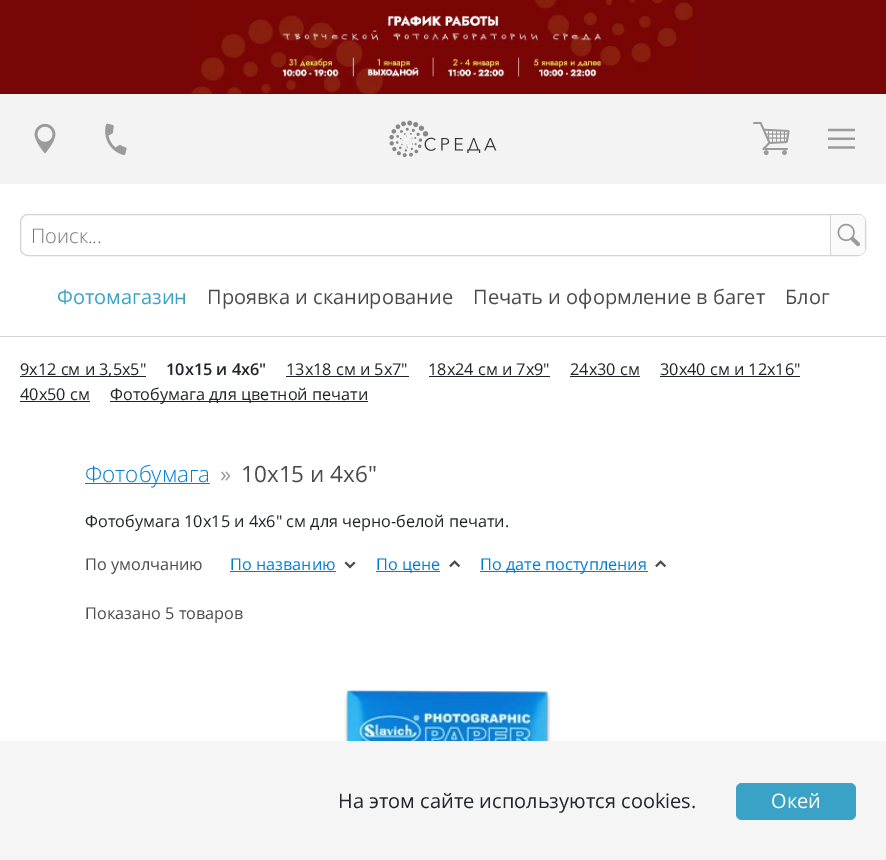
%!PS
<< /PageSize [886 860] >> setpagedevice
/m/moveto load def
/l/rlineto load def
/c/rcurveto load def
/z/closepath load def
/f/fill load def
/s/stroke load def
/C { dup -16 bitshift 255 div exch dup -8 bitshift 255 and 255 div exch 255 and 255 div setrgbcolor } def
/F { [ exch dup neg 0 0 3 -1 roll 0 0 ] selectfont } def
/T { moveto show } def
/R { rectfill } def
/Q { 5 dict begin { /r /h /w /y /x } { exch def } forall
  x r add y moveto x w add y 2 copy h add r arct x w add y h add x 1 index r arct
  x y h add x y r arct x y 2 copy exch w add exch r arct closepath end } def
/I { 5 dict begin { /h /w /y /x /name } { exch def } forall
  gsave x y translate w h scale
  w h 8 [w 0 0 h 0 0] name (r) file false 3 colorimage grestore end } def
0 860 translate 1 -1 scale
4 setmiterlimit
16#FFFFFF C
0 0 886 860 R
16#790606 C
0 0 886 94 R
(1.rgb) 191 0 502 94 I
16#F3F3F3 C
0 94 886 90 R
(2.rgb) 34 123 22 31 I
(3.rgb) 105 123 22 32 I
(4.rgb) 389 120 108 38 I
(5.rgb) 753 122 37 34 I
(6.rgb) 828 128 27 21 I
16#D3D3D3 C
20.5 214.5 845 41 7.5 Q s
/OpenSans-Light 20 F
16#757575 C
(Поиск...) 31 243 T
16#FAFAFA C
830 215 m 29 0 l 3.5 0 6 2.5 6 6 c 0 28 l 0 3.5 -2.5 6 -6 6 c -29 0 l z f
16#D3D3D3 C
830 215 1 40 R
(7.rgb) 837 223 23 24 I
0 336 886 1 R
/OpenSans-Regular 20 F
16#3AA2C7 C
(Фотомагазин) 57 304 T
16#4A4A4A C
(Проявка и сканирование) 207 304 T
(Печать и оформление в багет) 473 304 T
(Блог) 785 304 T
16#212529 C
20 376 126 1 R
/OpenSans-Regular 16.25 F
(9х12 см и 3,5х5") 20 375 T
/OpenSans-SemiBold 16.25 F
(10x15 и 4x6") 166 375 T
/OpenSans-Regular 16.25 F
(13x18 см и 5x7") 286 375 T
286 376 123 1 R
(18x24 см и 7x9") 428 375 T
429 376 121 1 R
(24x30 см) 570 375 T
570 376 70 1 R
(30x40 см и 12x16") 660 375 T
660 376 140 1 R
(40x50 см) 20 400 T
20 401 70 1 R
110 401 258 1 R
(Фотобумага для цветной печати) 110 400 T
16#007FD6 C
85 483 125 1 R
/OpenSans-Light 22.5 F
(Фотобумага) 85 482 T
/OpenSans-Regular 22.5 F
16#9B9B9B C
(») 220 482 T
16#4A4A4A C
(10x15 и 4x6") 241 482 T
/OpenSans-Regular 16.25 F
16#212529 C
(Фотобумага 10x15 и 4x6" см для черно-белой печати.) 85 527 T
16#4A4A4A C
(По умолчанию) 85 570 T
16#007FD6 C
(По названию) 230 570 T
230 571 106 1 R
(8.rgb) 344 561 12 8 I
376 571 64 1 R
(По цене) 376 570 T
(9.rgb) 449 560 11 8 I
480 571 168 1 R
(По дате поступления) 480 570 T
(10.rgb) 655 560 12 8 I
16#4A4A4A C
(Показано 5 товаров) 85 619 T
(11.rgb) 344 690 207 51 I
16#F5F5F5 C
0 741 886 119 R
/OpenSans-Regular 20 F
16#212529 C
(На этом сайте используются cookies.) 338 808 T
16#3AA2C7 C
736 783 120 37 6 Q f
16#FFFFFF C
(Окей) 771 808 T
showpage
